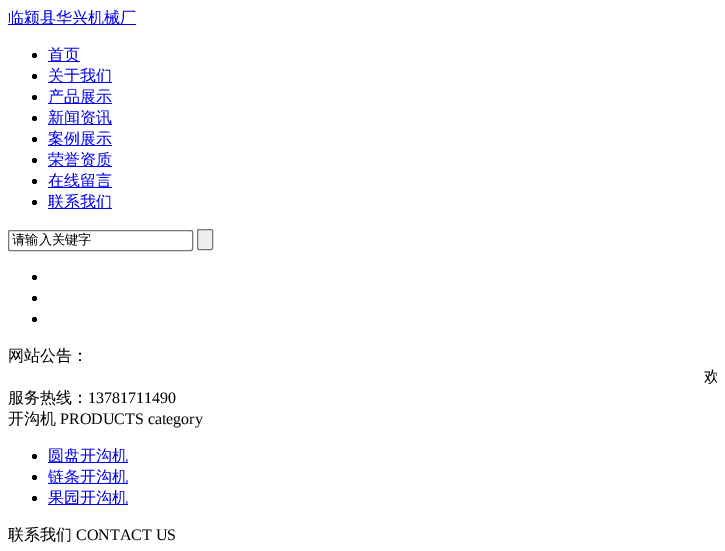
%!PS
<< /PageSize [725 551] >> setpagedevice
/f/fill load def
/s/stroke load def
/q/gsave load def
/Q_/grestore load def
/C { dup -16 bitshift 255 div exch dup -8 bitshift 255 and 255 div exch 255 and 255 div setrgbcolor } def
/F { [ exch dup neg 0 0 3 -1 roll 0 0 ] selectfont } def
/T { moveto show } def
/R { rectfill } def
/O { newpath 0 360 arc closepath } def
/Q { 5 dict begin { /r /h /w /y /x } { exch def } forall
  x r add y moveto x w add y 2 copy h add r arct x w add y h add x 1 index r arct
  x y h add x y r arct x y 2 copy exch w add exch r arct closepath end } def
0 551 translate 1 -1 scale
4 setmiterlimit
16#FFFFFF C
0 0 725 551 R
16#0000EE C
8 24 128 1 R
/WenQuanYiZenHei-Medium 16 F
(临颍县华兴机械厂) 8 23 T
16#000000 C
34.5 55.5 2.5 O f
16#0000EE C
48 61 32 1 R
(首页) 48 60 T
16#000000 C
34.5 76.5 2.5 O f
16#0000EE C
48 82 64 1 R
(关于我们) 48 81 T
16#000000 C
34.5 97.5 2.5 O f
16#0000EE C
48 103 64 1 R
(产品展示) 48 102 T
16#000000 C
34.5 118.5 2.5 O f
16#0000EE C
48 124 64 1 R
(新闻资讯) 48 123 T
16#000000 C
34.5 139.5 2.5 O f
16#0000EE C
48 145 64 1 R
(案例展示) 48 144 T
16#000000 C
34.5 160.5 2.5 O f
16#0000EE C
48 166 64 1 R
(荣誉资质) 48 165 T
16#000000 C
34.5 181.5 2.5 O f
16#0000EE C
48 187 64 1 R
(在线留言) 48 186 T
16#000000 C
34.5 202.5 2.5 O f
16#0000EE C
48 208 64 1 R
(联系我们) 48 207 T
16#767676 C
8.5 230.5 184 20 1.5 Q s
/WenQuanYiZenHei-Medium 13.25 F
16#000000 C
(请输入关键字) 12 244 T
16#EFEFEF C
197.5 229.5 15 20 1.5 Q q f Q_
16#767676 C
s
16#000000 C
34.5 277.5 2.5 O f
34.5 298.5 2.5 O f
34.5 319.5 2.5 O f
/WenQuanYiZenHei-Medium 16 F
(网站公告：) 8 361 T
q
8 367 709 21 rectclip
(欢) 704 382 T
Q_
(服务热线：) 8 403 T
/LiberationSerif-Regular 16 F
(13781711490) 88 403 T
/WenQuanYiZenHei-Medium 16 F
(开沟机) 8 424 T
/LiberationSerif-Regular 16 F
(PRODUCTS category) 60 424 T
34.5 456.5 2.5 O f
16#0000EE C
48 462 80 1 R
/WenQuanYiZenHei-Medium 16 F
(圆盘开沟机) 48 461 T
16#000000 C
34.5 477.5 2.5 O f
16#0000EE C
48 483 80 1 R
(链条开沟机) 48 482 T
16#000000 C
34.5 498.5 2.5 O f
16#0000EE C
48 504 80 1 R
(果园开沟机) 48 503 T
16#000000 C
(联系我们) 8 540 T
/LiberationSerif-Regular 16 F
(CONTACT US) 76 540 T
showpage
